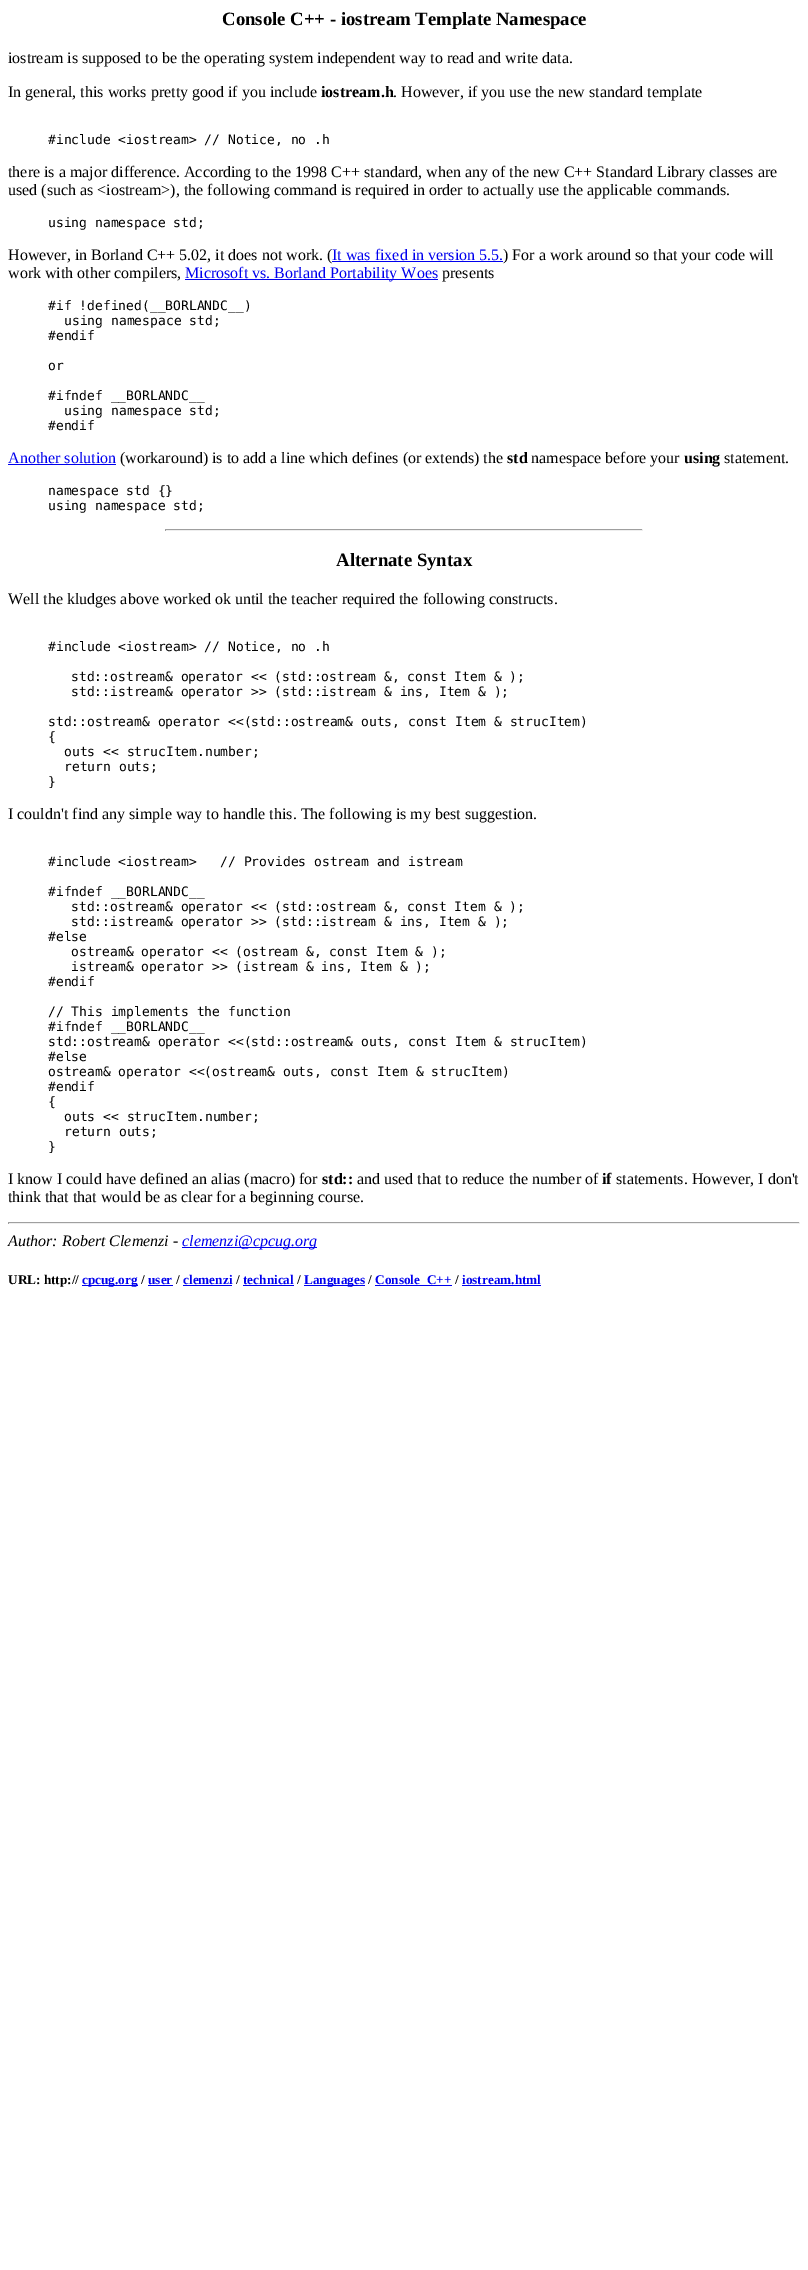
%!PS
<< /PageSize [808 2270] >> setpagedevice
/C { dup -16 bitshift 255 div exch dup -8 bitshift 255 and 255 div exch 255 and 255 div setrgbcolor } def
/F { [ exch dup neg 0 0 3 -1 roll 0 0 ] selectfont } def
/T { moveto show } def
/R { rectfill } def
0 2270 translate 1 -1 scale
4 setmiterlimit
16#FFFFFF C
0 0 808 2270 R
/LiberationSerif-Bold 18.75 F
16#000000 C
(Console C++ - iostream Template Namespace) 222 25 T
/LiberationSerif-Regular 16 F
(iostream is supposed to be the operating system independent way to read and write data.) 8 63 T
(In general, this works pretty good if you include) 8 97 T
/LiberationSerif-Bold 16 F
(iostream.h) 321 97 T
/LiberationSerif-Regular 16 F
(. However, if you use the new standard template) 393 97 T
/DejaVuSansMono-Regular 13 F
(#include <iostream> // Notice, no .h) 48 144 T
/LiberationSerif-Regular 16 F
(there is a major difference. According to the 1998 C++ standard, when any of the new C++ Standard Library classes are) 8 177 T
(used \(such as <iostream>\), the following command is required in order to actually use the applicable commands.) 8 195 T
/DejaVuSansMono-Regular 13 F
(using namespace std;) 48 227 T
/LiberationSerif-Regular 16 F
(However, in Borland C++ 5.02, it does not work. \() 8 260 T
16#0000EE C
(It was fixed in version 5.5.) 332 260 T
332 261 171 1 R
16#000000 C
(\) For a work around so that your code will) 503 260 T
(work with other compilers,) 8 278 T
16#0000EE C
185 279 253 1 R
(Microsoft vs. Borland Portability Woes) 185 278 T
16#000000 C
(presents) 442 278 T
/DejaVuSansMono-Regular 13 F
(#if !defined\(__BORLANDC__\)) 48 310 T
(using namespace std;) 64 325 T
(#endif) 48 340 T
(or) 48 370 T
(#ifndef __BORLANDC__) 48 400 T
(using namespace std;) 64 415 T
(#endif) 48 430 T
/LiberationSerif-Regular 16 F
16#0000EE C
(Another solution) 8 463 T
8 464 108 1 R
16#000000 C
(\(workaround\) is to add a line which defines \(or extends\) the) 120 463 T
/LiberationSerif-Bold 16 F
(std) 507 463 T
/LiberationSerif-Regular 16 F
(namespace before your) 531 463 T
/LiberationSerif-Bold 16 F
(using) 684 463 T
/LiberationSerif-Regular 16 F
(statement.) 724 463 T
/DejaVuSansMono-Regular 13 F
(namespace std {}) 48 495 T
(using namespace std;) 48 510 T
16#9F9F9F C
165 529 478 1 R
16#EEEEEE C
642 529 1 2 R
165 530 478 1 R
16#9F9F9F C
165 529 1 2 R
/LiberationSerif-Bold 18.75 F
16#000000 C
(Alternate Syntax) 336 566 T
/LiberationSerif-Regular 16 F
(Well the kludges above worked ok until the teacher required the following constructs.) 8 604 T
/DejaVuSansMono-Regular 13 F
(#include <iostream> // Notice, no .h) 48 651 T
(std::ostream& operator << \(std::ostream &, const Item & \);) 71 681 T
(std::istream& operator >> \(std::istream & ins, Item & \);) 71 696 T
(std::ostream& operator <<\(std::ostream& outs, const Item & strucItem\)) 48 726 T
({) 48 741 T
(outs << strucItem.number;) 64 756 T
(return outs;) 64 771 T
(}) 48 786 T
/LiberationSerif-Regular 16 F
(I couldn't find any simple way to handle this. The following is my best suggestion.) 8 819 T
/DejaVuSansMono-Regular 13 F
(#include <iostream>   // Provides ostream and istream) 48 866 T
(#ifndef __BORLANDC__) 48 896 T
(std::ostream& operator << \(std::ostream &, const Item & \);) 71 911 T
(std::istream& operator >> \(std::istream & ins, Item & \);) 71 926 T
(#else) 48 941 T
(ostream& operator << \(ostream &, const Item & \);) 71 956 T
(istream& operator >> \(istream & ins, Item & \);) 71 971 T
(#endif) 48 986 T
(// This implements the function) 48 1016 T
(#ifndef __BORLANDC__) 48 1031 T
(std::ostream& operator <<\(std::ostream& outs, const Item & strucItem\)) 48 1046 T
(#else) 48 1061 T
(ostream& operator <<\(ostream& outs, const Item & strucItem\)) 48 1076 T
(#endif) 48 1091 T
({) 48 1106 T
(outs << strucItem.number;) 64 1121 T
(return outs;) 64 1136 T
(}) 48 1151 T
/LiberationSerif-Regular 16 F
(I know I could have defined an alias \(macro\) for) 8 1184 T
/LiberationSerif-Bold 16 F
(std::) 322 1184 T
/LiberationSerif-Regular 16 F
(and used that to reduce the number of) 357 1184 T
/LiberationSerif-Bold 16 F
(if) 602 1184 T
/LiberationSerif-Regular 16 F
(statements. However, I don't) 616 1184 T
(think that that would be as clear for a beginning course.) 8 1202 T
16#9F9F9F C
8 1222 792 1 R
16#EEEEEE C
799 1222 1 2 R
8 1223 792 1 R
16#9F9F9F C
8 1222 1 2 R
/LiberationSerif-Italic 16 F
16#000000 C
(Author: Robert Clemenzi -) 8 1246 T
16#0000EE C
182 1247 135 1 R
(clemenzi@cpcug.org) 182 1246 T
/LiberationSerif-Bold 13.25 F
16#000000 C
(URL: http://) 8 1284 T
16#0000EE C
82 1285 56 1 R
(cpcug.org) 82 1284 T
16#000000 C
(/) 141 1284 T
16#0000EE C
(user) 148 1284 T
148 1285 25 1 R
16#000000 C
(/) 176 1284 T
16#0000EE C
(clemenzi) 183 1284 T
183 1285 49 1 R
16#000000 C
(/) 236 1284 T
16#0000EE C
(technical) 243 1284 T
243 1285 51 1 R
16#000000 C
(/) 297 1284 T
16#0000EE C
304 1285 61 1 R
(Languages) 304 1284 T
16#000000 C
(/) 368 1284 T
16#0000EE C
375 1285 77 1 R
(Console_C++) 375 1284 T
16#000000 C
(/) 455 1284 T
16#0000EE C
(iostream.html) 462 1284 T
462 1285 79 1 R
showpage
